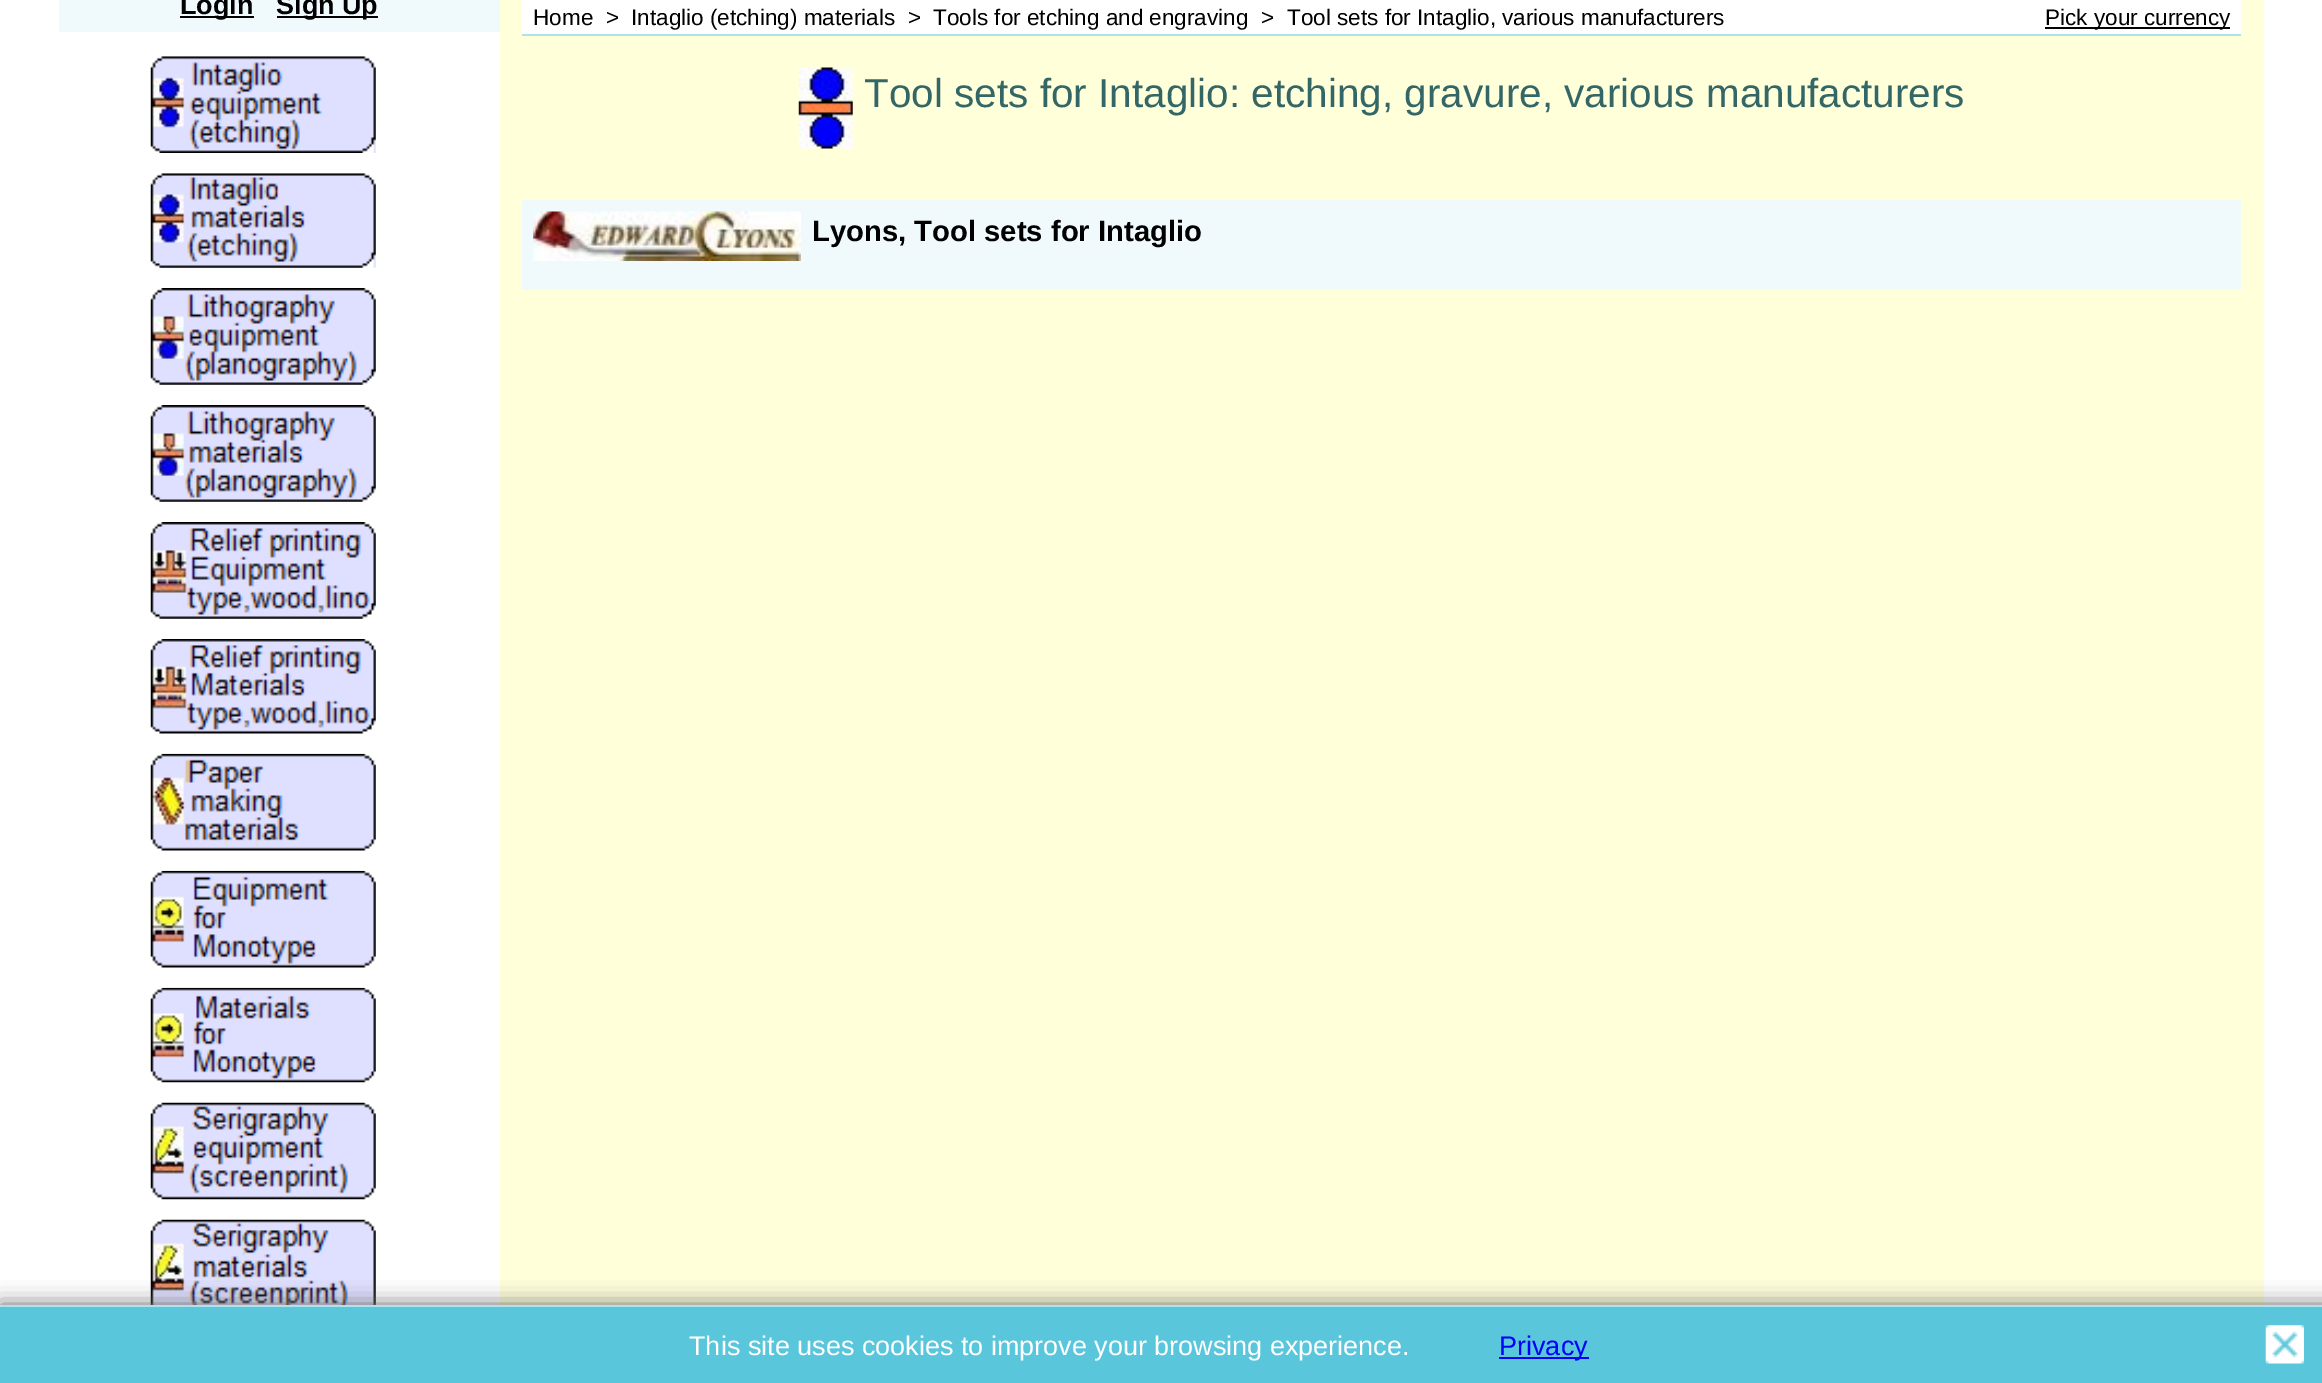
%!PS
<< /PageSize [2322 1383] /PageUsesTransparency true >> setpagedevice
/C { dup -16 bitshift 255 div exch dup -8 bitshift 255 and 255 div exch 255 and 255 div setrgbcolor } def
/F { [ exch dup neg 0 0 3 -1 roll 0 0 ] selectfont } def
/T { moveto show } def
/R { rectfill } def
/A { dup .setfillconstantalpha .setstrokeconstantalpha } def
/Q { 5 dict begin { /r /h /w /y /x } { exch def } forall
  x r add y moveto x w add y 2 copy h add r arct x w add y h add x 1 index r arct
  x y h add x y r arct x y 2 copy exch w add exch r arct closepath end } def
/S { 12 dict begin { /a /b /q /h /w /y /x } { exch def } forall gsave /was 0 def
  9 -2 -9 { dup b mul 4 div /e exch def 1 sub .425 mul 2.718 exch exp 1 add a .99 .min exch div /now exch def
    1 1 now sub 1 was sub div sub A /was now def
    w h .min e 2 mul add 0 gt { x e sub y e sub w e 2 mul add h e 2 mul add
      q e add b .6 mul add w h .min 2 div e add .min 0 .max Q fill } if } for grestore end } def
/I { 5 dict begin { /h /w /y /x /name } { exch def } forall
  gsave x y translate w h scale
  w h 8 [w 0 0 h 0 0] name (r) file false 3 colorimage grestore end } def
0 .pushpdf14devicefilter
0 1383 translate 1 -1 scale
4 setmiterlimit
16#FFFFFF C
0 0 2322 1383 R
16#F0F9FC C
59 0 441 32 R
16#000000 C
180 16 74 2 R
/LiberationSans-Bold 27 F
(Login) 180 14 T
277 16 101 2 R
(Sign Up) 276 14 T
(1.rgb) 150 56 226 97 I
(2.rgb) 150 173 226 95 I
(3.rgb) 150 288 226 97 I
(4.rgb) 150 405 226 97 I
(5.rgb) 150 522 226 97 I
(6.rgb) 150 639 226 95 I
(7.rgb) 150 753 226 98 I
(8.rgb) 150 870 226 98 I
(9.rgb) 150 987 226 96 I
(10.rgb) 150 1102 226 98 I
(11.rgb) 150 1219 226 86 I
16#FFFFDA C
500 0 1764 1305 R
16#FFFFFF C
522 0 1719 34 R
16#ACE3ED C
522 34 1719 2 R
/LiberationSans-Regular 22.5 F
16#000000 C
(Home) 533 25 T
(>) 606 25 T
(Intaglio \(etching\) materials) 631 25 T
(>) 908 25 T
(Tools for etching and engraving) 933 25 T
(>) 1261 25 T
(Tool sets for Intaglio, various manufacturers) 1287 25 T
2045 27 185 2 R
(Pick your currency) 2045 25 T
(12.rgb) 798 67 55 82 I
/LiberationSans-Regular 40.5 F
16#336666 C
(Tool sets for Intaglio: etching, gravure, various manufacturers) 864 107 T
16#F0F9FC C
522 200 1719 90 R
(13.rgb) 533 211 268 50 I
/LiberationSans-Bold 29.25 F
16#000000 C
(Lyons, Tool sets for Intaglio) 812 241 T
16#666666 C
0 1305 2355 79 0 11 1 S
16#5AC6DB C
0 1307 2322 76 R
16#ACE3ED C
0 1305 2322 2 R
/LiberationSans-Regular 27 F
16#FFFFFF C
(This site uses cookies to improve your browsing experience.) 689 1355 T
16#0000FF C
1499 1357 90 2 R
(Privacy) 1499 1355 T
(14.rgb) 2265 1325 39 39 I
.poppdf14devicefilter showpage
